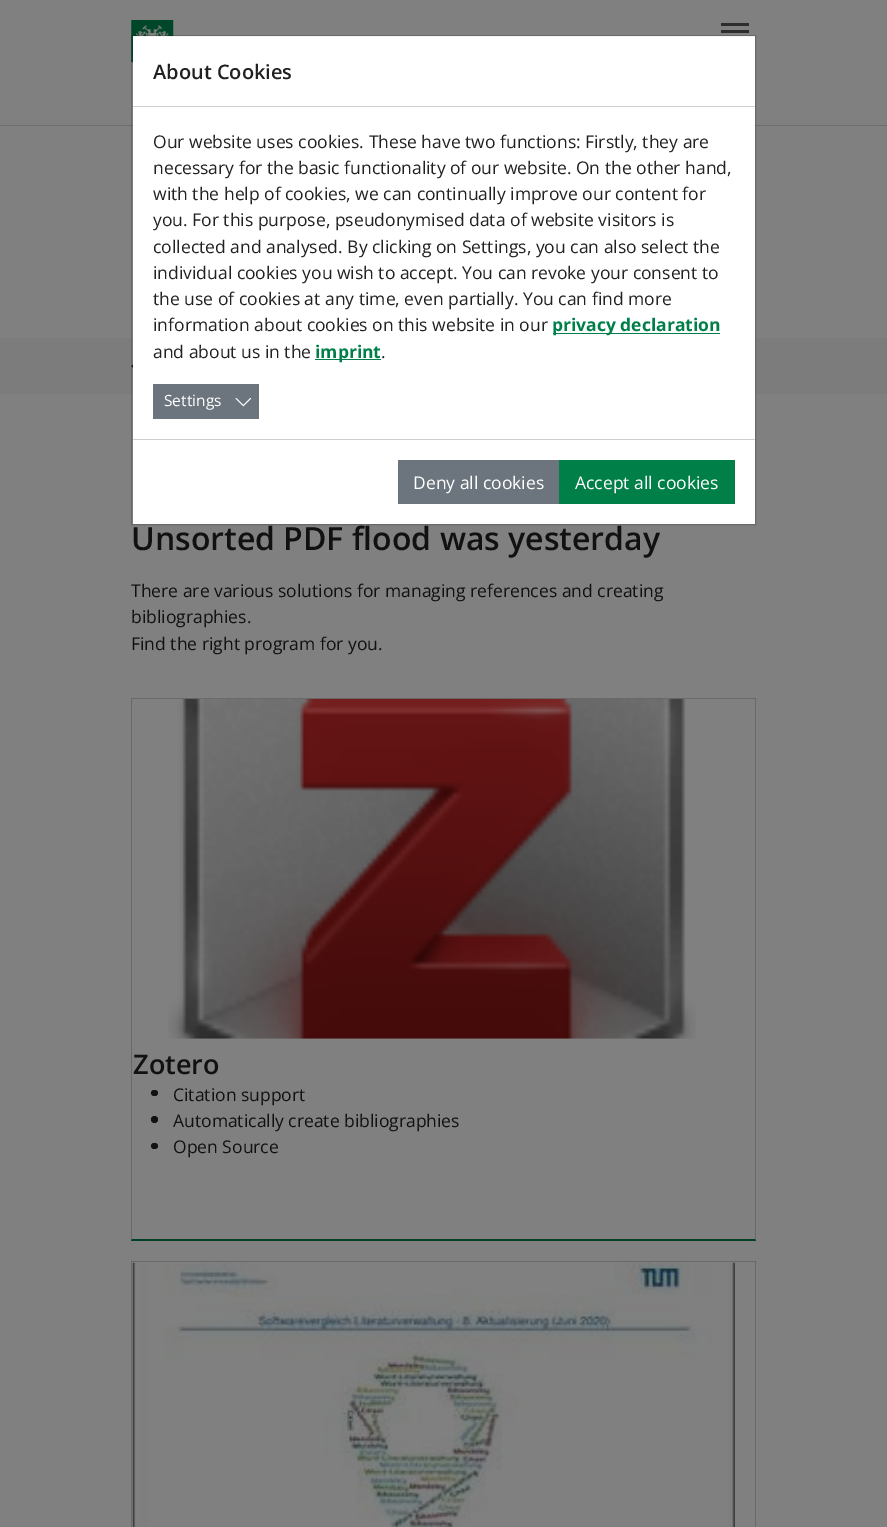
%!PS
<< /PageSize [887 1527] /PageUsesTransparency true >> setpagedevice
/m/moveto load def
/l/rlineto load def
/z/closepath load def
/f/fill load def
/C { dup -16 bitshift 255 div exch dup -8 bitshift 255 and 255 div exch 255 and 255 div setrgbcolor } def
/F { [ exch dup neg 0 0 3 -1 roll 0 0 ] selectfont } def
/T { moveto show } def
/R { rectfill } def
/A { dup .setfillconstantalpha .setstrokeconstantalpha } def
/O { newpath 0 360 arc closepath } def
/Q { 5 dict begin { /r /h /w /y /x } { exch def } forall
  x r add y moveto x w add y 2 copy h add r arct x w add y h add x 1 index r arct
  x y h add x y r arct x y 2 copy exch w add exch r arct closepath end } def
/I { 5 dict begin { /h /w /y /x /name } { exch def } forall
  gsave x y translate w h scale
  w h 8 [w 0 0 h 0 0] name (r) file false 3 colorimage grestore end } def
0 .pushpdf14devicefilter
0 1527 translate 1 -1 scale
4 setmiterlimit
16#808080 C
0 0 887 1527 R
16#6D6D6D C
0 125 m 0 1 l 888 0 l 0 -125 l 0 124 l z f
(2.rgb) 131 20 43 43 I
16#7C7C7C C
0 338 887 56 R
16#FFFFFF C
133 36 622 488 R
(3.rgb) 131 364 2 4 I
0.18 A
16#000000 C
131.5 35.5 624 489 rectstroke
1 A
16#CECECE C
133 106 622 1 R
/OpenSans-SemiBold 20 F
16#212121 C
(About Cookies) 153 79 T
/OpenSans-Regular 17.5 F
(Our website uses cookies. These have two functions: Firstly, they are) 153 148 T
(necessary for the basic functionality of our website. On the other hand,) 153 174 T
(with the help of cookies, we can continually improve our content for) 153 200 T
(you. For this purpose, pseudonymised data of website visitors is) 153 226 T
(collected and analysed. By clicking on Settings, you can also select the) 153 253 T
(individual cookies you wish to accept. You can revoke your consent to) 153 279 T
(the use of cookies at any time, even partially. You can find more) 153 305 T
(information about cookies on this website in our) 153 331 T
16#008048 C
553 333 167 1 R
/OpenSans-Bold 17.5 F
(privacy declaration) 552 331 T
/OpenSans-Regular 17.5 F
16#212121 C
(and about us in the) 153 358 T
16#008048 C
315 359 66 1 R
/OpenSans-Bold 17.5 F
(imprint) 315 358 T
/OpenSans-Regular 17.5 F
16#212121 C
(.) 381 358 T
16#6C757D C
153 384 106 35 R
/OpenSans-Regular 15.5 F
16#FFFFFF C
(Settings) 164 406 T
(1.rgb) 235 397 16 10 I
16#CECECE C
133 439 622 1 R
16#6C757D C
398 460 161 44 R
/OpenSans-Regular 17.5 F
16#FFFFFF C
(Deny all cookies) 413 489 T
16#008048 C
559 460 176 44 R
16#FFFFFF C
(Accept all cookies) 575 489 T
16#2D2D2D C
721 30 28 3 R
721 23 28 3 R
/OpenSans-SemiBold 32 F
16#111111 C
(Unsorted PDF flood was yesterday) 131 550 T
/OpenSans-Regular 17.5 F
(There are various solutions for managing references and creating) 131 597 T
(bibliographies.) 131 623 T
(Find the right program for you.) 131 650 T
16#696969 C
131 698 m 625 0 l -1 1 l -623 0 l z f
0.18 A
16#000000 C
756 698 m 0 543 l -1 -2 l 0 -540 l z f
1 A
16#004024 C
756 1241 m -625 0 l 1 -2 l 623 0 l z f
0.18 A
16#000000 C
131 1241 m 0 -543 l 1 1 l 0 540 l z f
1 A
(4.rgb) 168 698 528 341 I
/OpenSans-SemiBold 27 F
16#111111 C
(Zotero) 133 1074 T
151 1090 7 6 3 Q f
/OpenSans-Regular 17.5 F
(Citation support) 173 1101 T
154.5 1119.5 3.5 O f
(Automatically create bibliographies) 173 1127 T
151 1143 7 6 3 Q f
(Open Source) 173 1153 T
16#696969 C
131 1261 m 625 0 l -1 1 l -623 0 l z f
0.18 A
16#000000 C
756 1261 m 0 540 l -1 -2 l 0 -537 l z f
131 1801 m 0 -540 l 1 1 l 0 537 l z f
1 A
(5.rgb) 132 1262 603 265 I
.poppdf14devicefilter showpage
